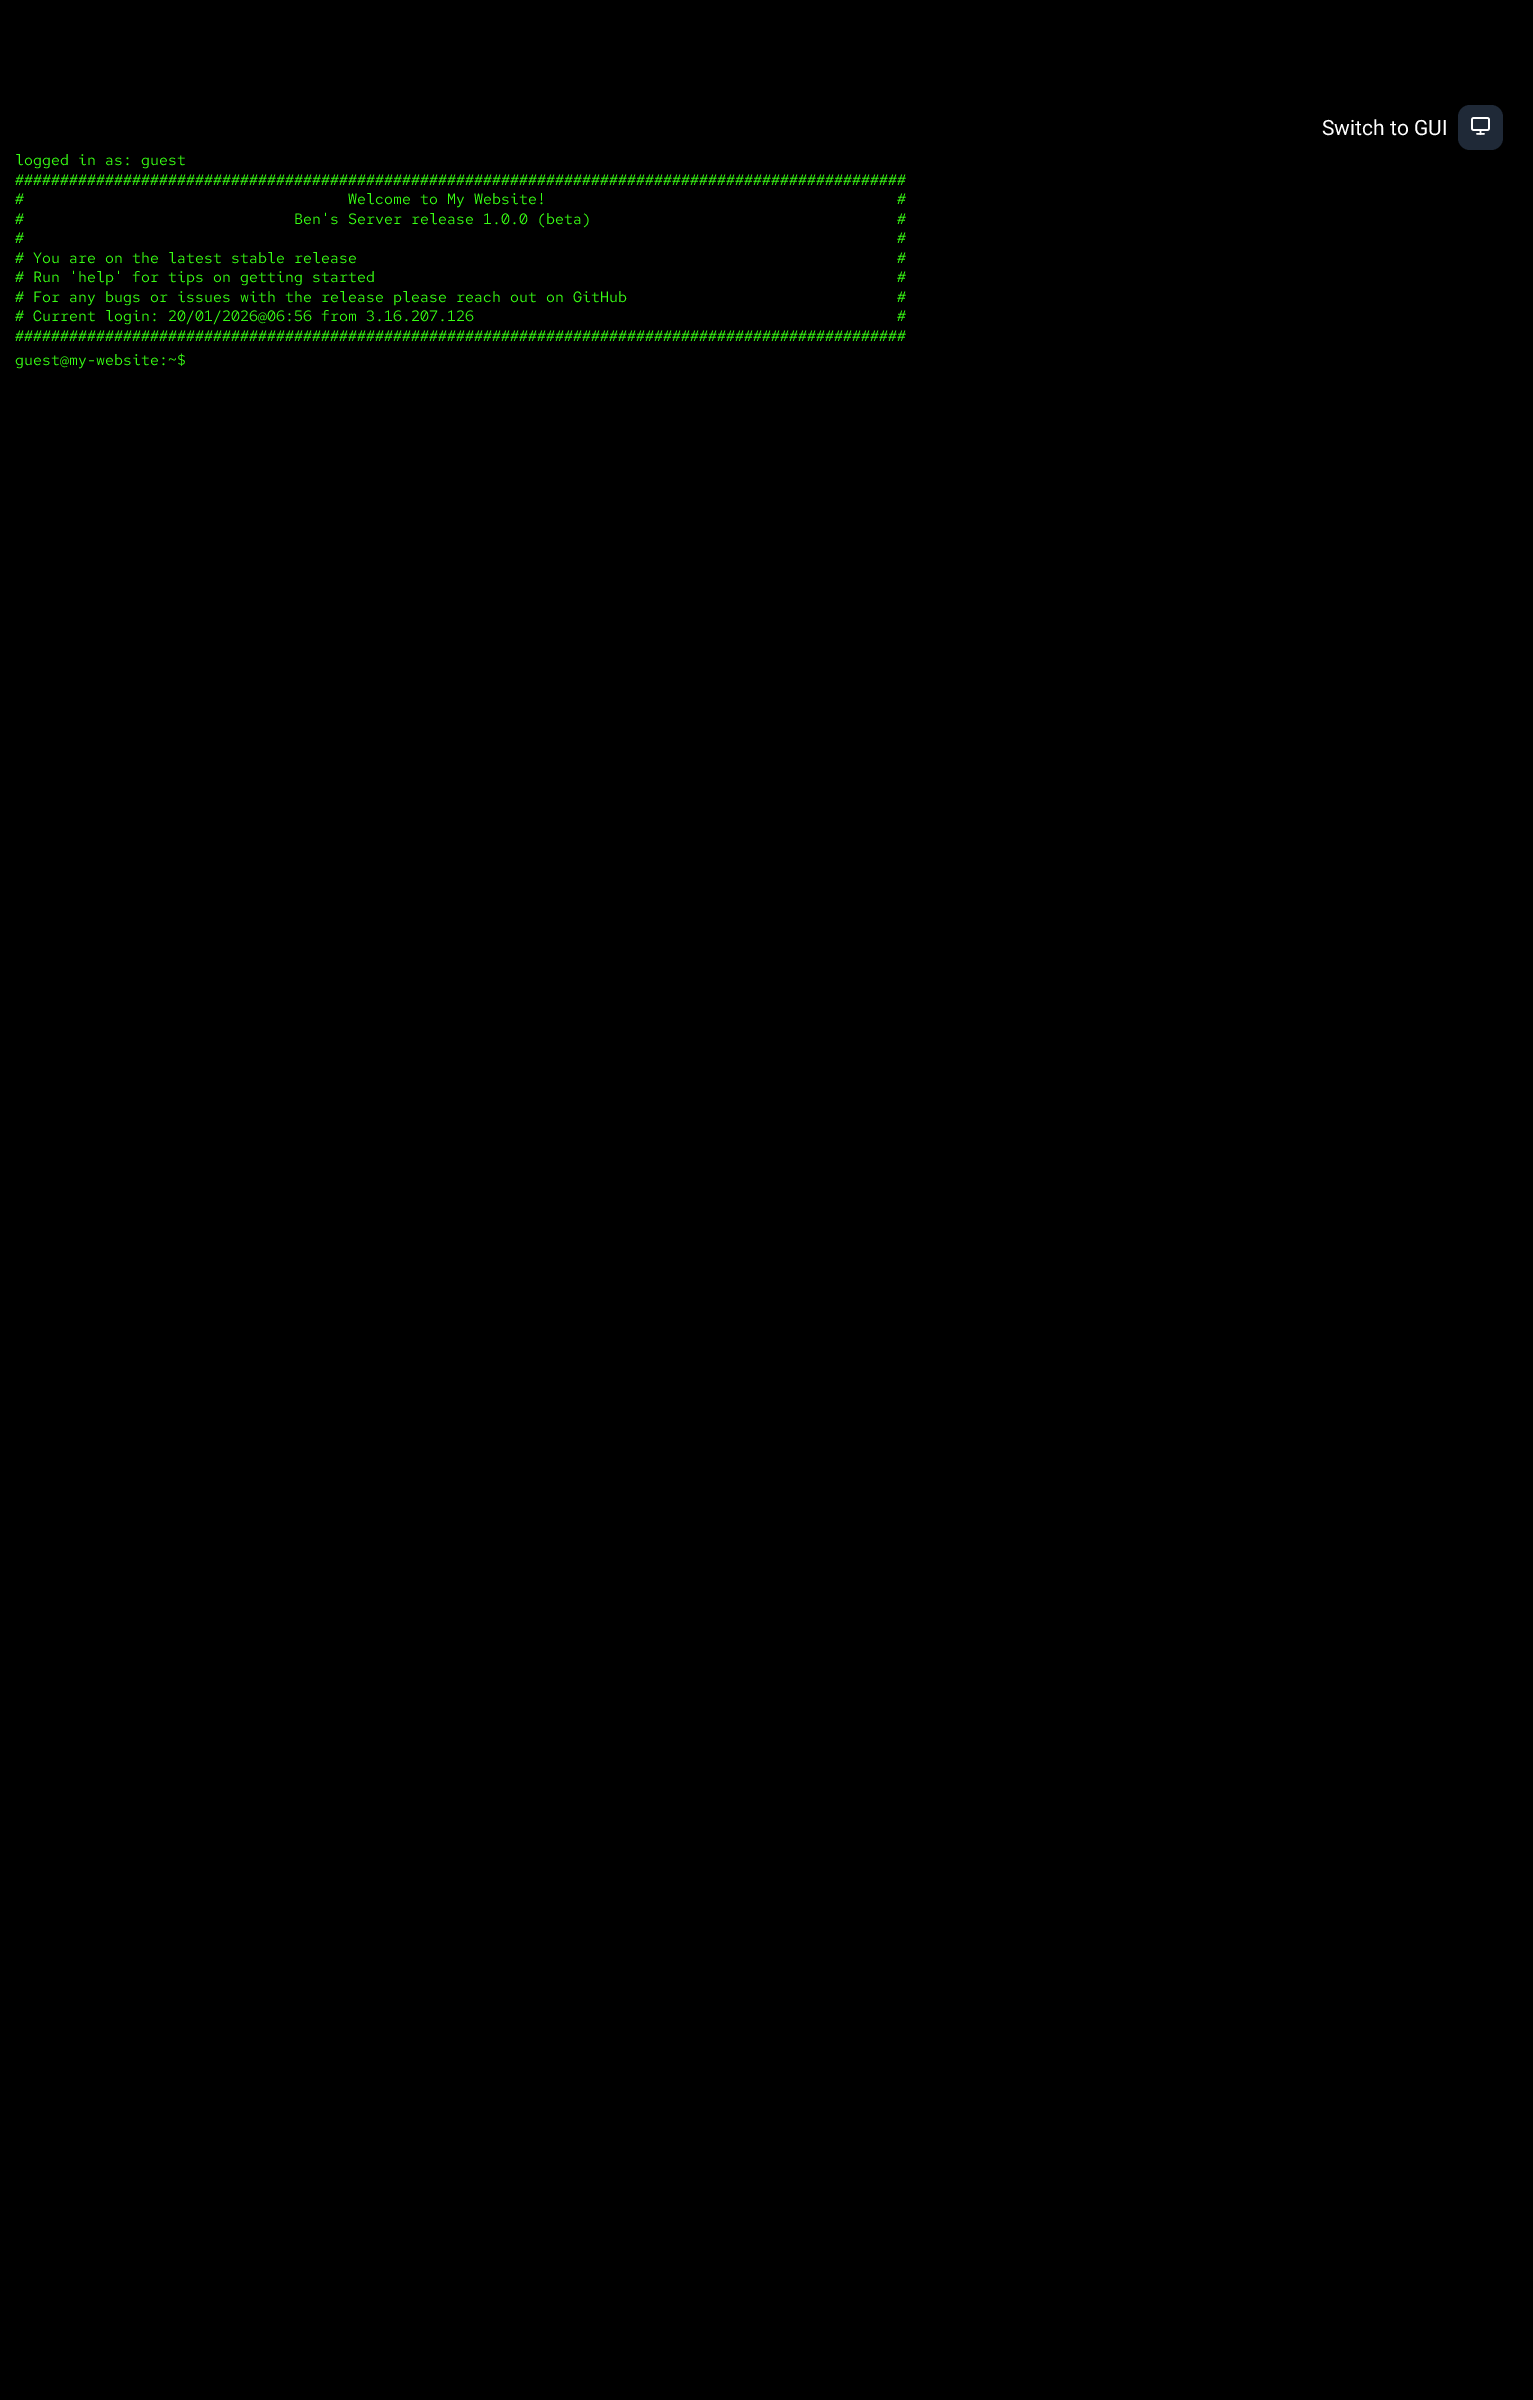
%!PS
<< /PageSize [1533 2400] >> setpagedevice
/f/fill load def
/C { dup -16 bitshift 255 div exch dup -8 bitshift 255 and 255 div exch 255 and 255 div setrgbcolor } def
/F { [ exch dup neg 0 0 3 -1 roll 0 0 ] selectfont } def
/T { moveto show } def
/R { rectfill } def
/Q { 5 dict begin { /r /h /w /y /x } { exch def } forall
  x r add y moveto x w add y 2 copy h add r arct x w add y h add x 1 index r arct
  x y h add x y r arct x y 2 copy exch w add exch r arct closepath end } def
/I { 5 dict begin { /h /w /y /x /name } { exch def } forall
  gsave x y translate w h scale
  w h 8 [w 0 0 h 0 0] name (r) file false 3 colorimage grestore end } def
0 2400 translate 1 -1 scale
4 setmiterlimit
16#000000 C
0 0 1533 2400 R
/Roboto-Regular 21 F
16#FFFFFF C
(Switch to GUI) 1322 135 T
16#1F2937 C
1458 105 45 45 12 Q f
(1.rgb) 1471 117 19 18 I
/RedHatMono-Regular 15 F
16#39FF14 C
(logged in as: guest) 15 165 T
(###################################################################################################) 15 185 T
(#                                    Welcome to My Website!                                       #) 15 204 T
(#                              Ben's Server release 1.0.0 \(beta\)                                  #) 15 224 T
(#                                                                                                 #) 15 243 T
(# You are on the latest stable release                                                            #) 15 263 T
(# Run 'help' for tips on getting started                                                          #) 15 282 T
(# For any bugs or issues with the release please reach out on GitHub                              #) 15 302 T
(# Current login: 20/01/2026@06:56 from 3.16.207.126                                               #) 15 321 T
(###################################################################################################) 15 341 T
(guest@my-website:~$) 15 365 T
showpage
